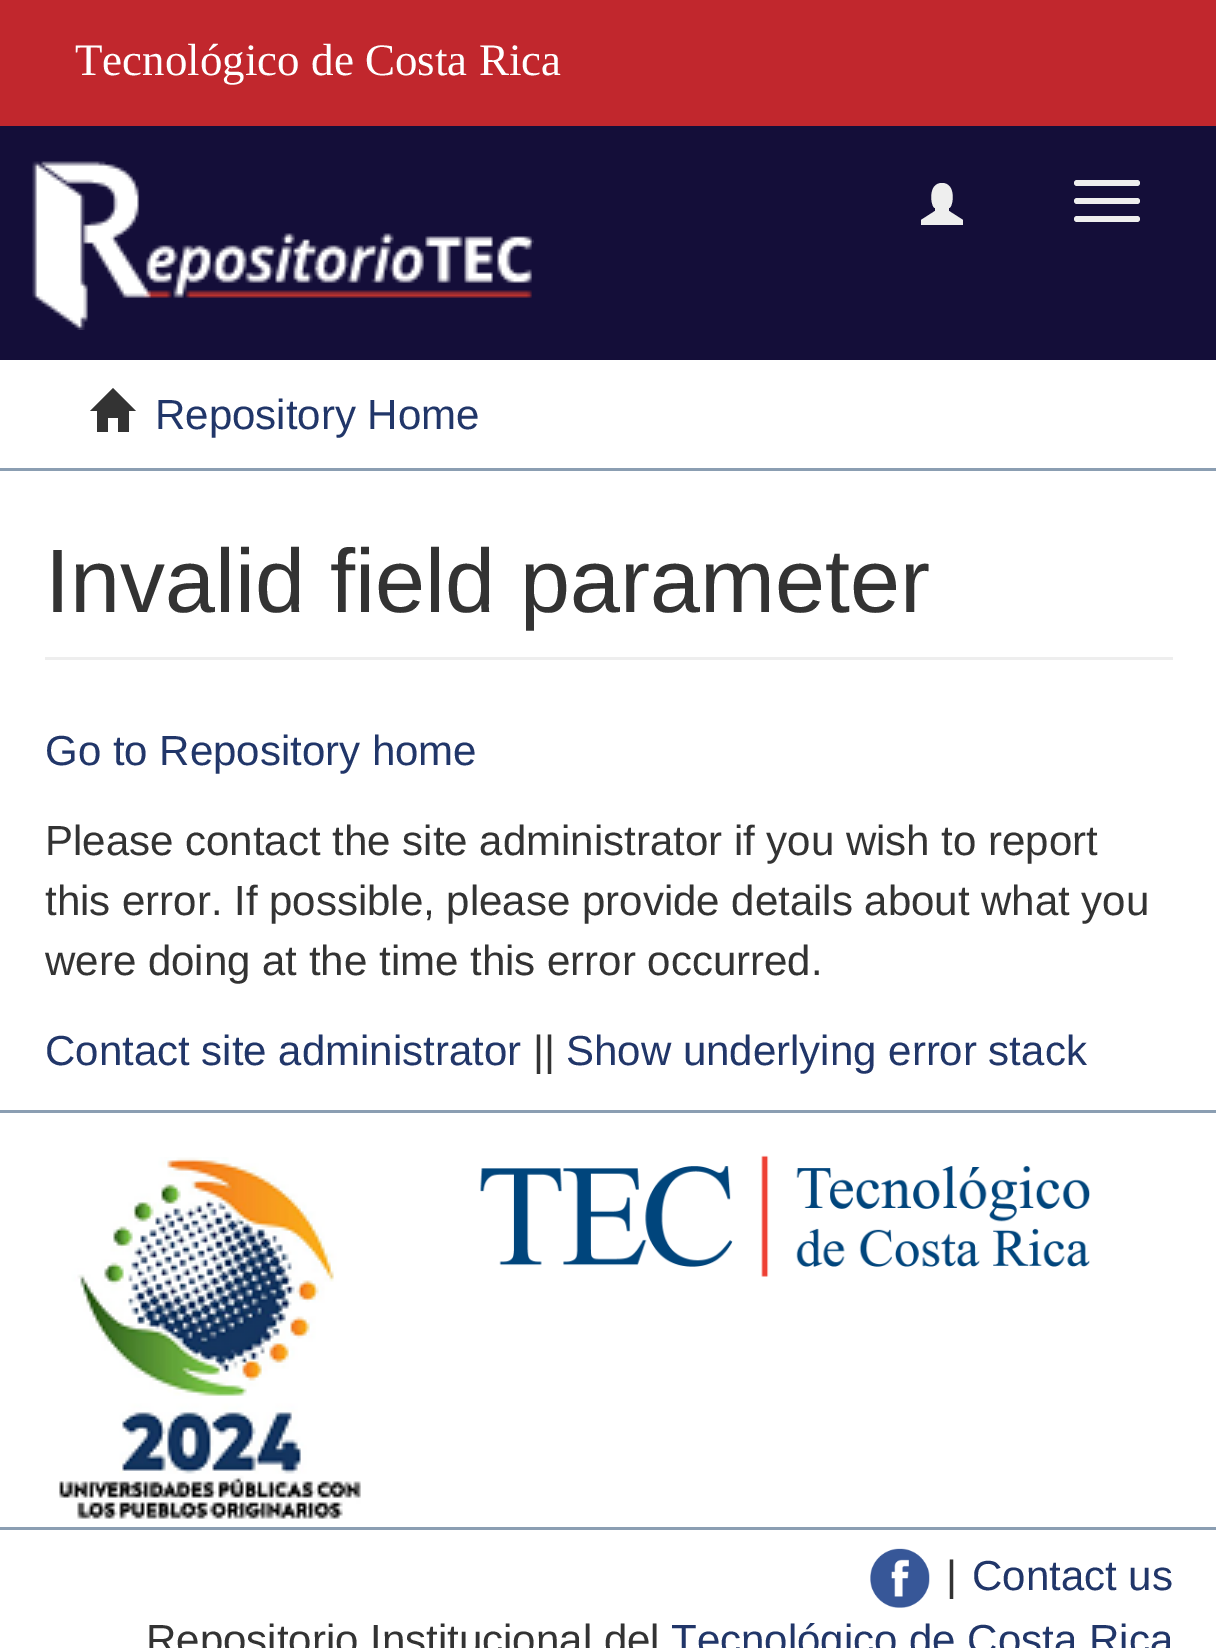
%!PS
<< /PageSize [1216 1648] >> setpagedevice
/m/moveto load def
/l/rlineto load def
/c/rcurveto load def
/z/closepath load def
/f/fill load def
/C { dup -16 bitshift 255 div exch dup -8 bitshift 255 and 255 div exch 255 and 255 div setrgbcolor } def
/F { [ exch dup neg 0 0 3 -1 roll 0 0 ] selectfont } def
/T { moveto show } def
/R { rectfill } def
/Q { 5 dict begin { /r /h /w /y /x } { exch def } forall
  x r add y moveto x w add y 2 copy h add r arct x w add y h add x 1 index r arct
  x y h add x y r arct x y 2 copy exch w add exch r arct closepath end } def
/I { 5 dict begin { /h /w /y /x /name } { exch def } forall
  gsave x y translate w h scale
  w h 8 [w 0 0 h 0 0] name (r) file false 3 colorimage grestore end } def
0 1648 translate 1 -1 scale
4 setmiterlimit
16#FFFFFF C
0 0 1216 1648 R
16#140E39 C
0 126 1216 234 R
16#C1272D C
0 0 1216 126 R
/LiberationSerif-Regular 45 F
16#FFFFFF C
(Tecnológico de Costa Rica) 75 75 T
(1.rgb) 32 161 502 169 I
16#EEEEEE C
921 225 m 0 -5 l 14 -9 l 0 -3 l -4 0 -8 -25 7 -25 c 15 0 11 25 7 25 c 0 3 l 14 9 l 0 5 l z f
1074 180 66 6 3 Q f
1074 198 66 6 3 Q f
1074 216 66 6 3 Q f
16#8B9EB2 C
0 468 1216 3 R
16#333333 C
90 411 m 23 -23 l 23 23 l -7 0 l 0 21 l -11 0 l 0 -14 l -10 0 l 0 14 l -11 0 l 0 -21 l z f
/LiberationSans-Regular 42 F
16#213669 C
(Repository Home) 155 429 T
16#EEEEEE C
45 657 1128 3 R
/LiberationSans-Regular 90 F
16#333333 C
(Invalid field parameter) 45 612 T
/LiberationSans-Regular 42 F
16#213669 C
(Go to Repository home) 45 765 T
16#333333 C
(Please contact the site administrator if you wish to report) 45 855 T
(this error. If possible, please provide details about what you) 45 915 T
(were doing at the time this error occurred.) 45 975 T
16#213669 C
(Contact site administrator) 45 1065 T
16#333333 C
(||) 533 1065 T
16#213669 C
(Show underlying error stack) 566 1065 T
16#8B9EB2 C
0 1110 1216 3 R
(2.rgb) 59 1157 302 362 I
(3.rgb) 480 1155 610 122 I
0 1527 1216 3 R
(4.rgb) 870 1548 60 60 I
16#333333 C
(|) 946 1590 T
16#213669 C
(Contact us) 972 1590 T
16#333333 C
(Repositorio Institucional del) 146 1654 T
16#213669 C
(Tecnológico de Costa Rica) 671 1654 T
showpage
